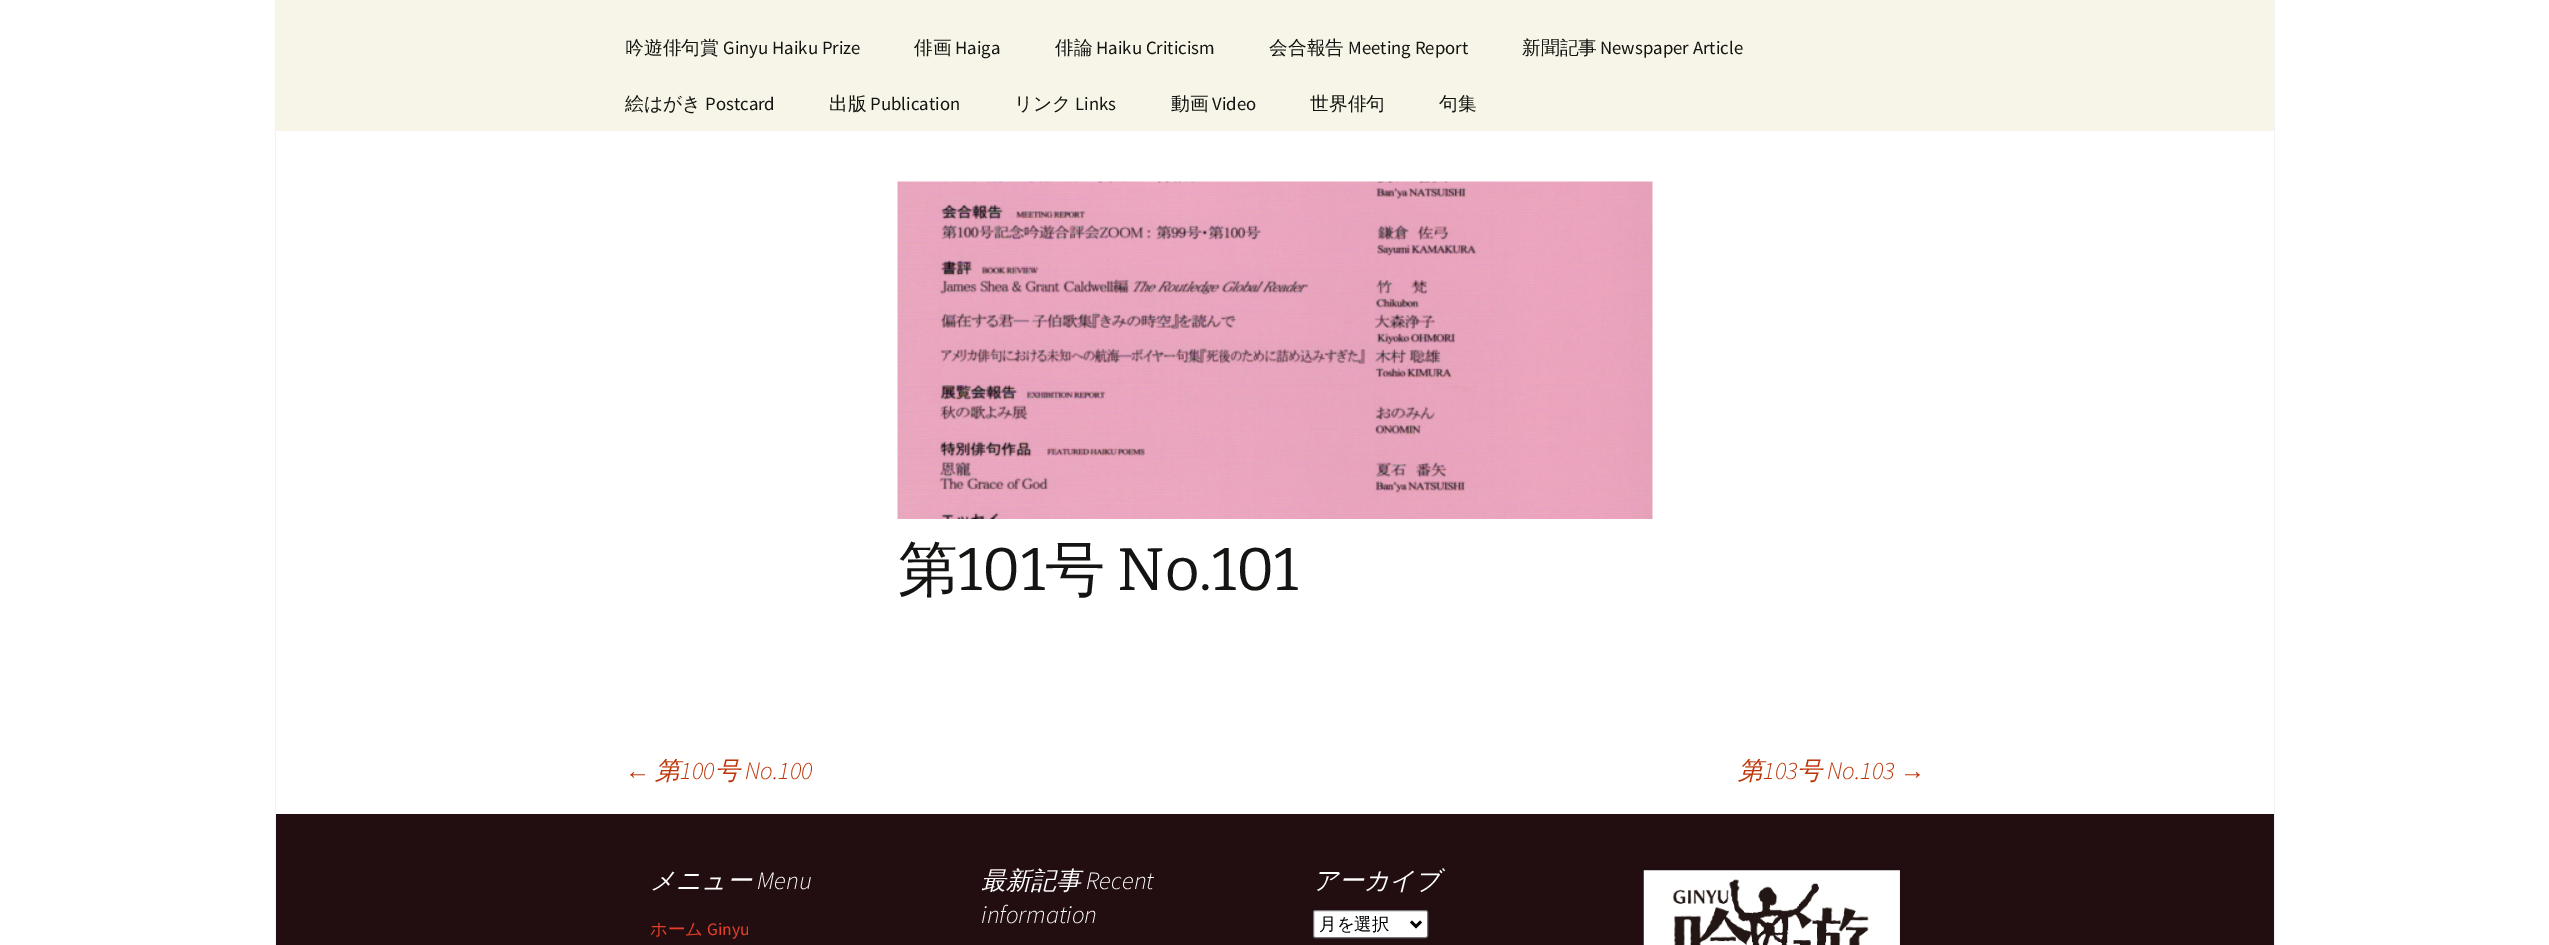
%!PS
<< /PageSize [2549 945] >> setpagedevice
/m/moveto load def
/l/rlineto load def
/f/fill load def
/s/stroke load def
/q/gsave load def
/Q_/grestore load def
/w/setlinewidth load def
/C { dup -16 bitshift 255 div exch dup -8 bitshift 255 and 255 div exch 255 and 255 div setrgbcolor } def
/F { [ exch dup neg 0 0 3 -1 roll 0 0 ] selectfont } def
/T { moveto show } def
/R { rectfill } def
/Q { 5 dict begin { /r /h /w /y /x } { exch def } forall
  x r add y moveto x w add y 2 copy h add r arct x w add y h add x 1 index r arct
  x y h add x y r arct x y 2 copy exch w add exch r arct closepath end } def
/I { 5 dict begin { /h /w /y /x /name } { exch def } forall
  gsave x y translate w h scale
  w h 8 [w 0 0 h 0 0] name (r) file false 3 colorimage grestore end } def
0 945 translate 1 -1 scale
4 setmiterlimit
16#FFFFFF C
0 0 2549 945 R
16#F2F2F2 C
2274 0 1 945 R
275 0 1 945 R
16#F7F5E7 C
276 0 1998 131 R
/WenQuanYiZenHei-Medium 18.75 F
16#141412 C
(吟遊俳句賞) 625 54 T
/SourceSansPro-Regular 18.75 F
(Ginyu Haiku Prize) 723 54 T
/WenQuanYiZenHei-Medium 18.75 F
(俳画) 914 54 T
/SourceSansPro-Regular 18.75 F
(Haiga) 955 54 T
/WenQuanYiZenHei-Medium 18.75 F
(俳論) 1055 54 T
/SourceSansPro-Regular 18.75 F
(Haiku Criticism) 1096 54 T
/WenQuanYiZenHei-Medium 18.75 F
(会合報告) 1269 54 T
/SourceSansPro-Regular 18.75 F
(Meeting Report) 1348 54 T
/WenQuanYiZenHei-Medium 18.75 F
(新聞記事) 1522 54 T
/SourceSansPro-Regular 18.75 F
(Newspaper Article) 1600 54 T
/WenQuanYiZenHei-Medium 18.75 F
(絵はがき) 625 110 T
/SourceSansPro-Regular 18.75 F
(Postcard) 705 110 T
/WenQuanYiZenHei-Medium 18.75 F
(出版) 829 110 T
/SourceSansPro-Regular 18.75 F
(Publication) 870 110 T
/WenQuanYiZenHei-Medium 18.75 F
(リンク) 1014 110 T
/SourceSansPro-Regular 18.75 F
(Links) 1075 110 T
/WenQuanYiZenHei-Medium 18.75 F
(動画) 1171 110 T
/SourceSansPro-Regular 18.75 F
(Video) 1212 110 T
/WenQuanYiZenHei-Medium 18.75 F
(世界俳句) 1310 110 T
(句集) 1439 110 T
(1.rgb) 897 181 756 338 I
/WenQuanYiZenHei-Medium 60 F
(第) 898 590 T
/Bitter-Thin 60 F
(101) 958 590 T
/WenQuanYiZenHei-Medium 60 F
(号) 1045 590 T
/Bitter-Thin 60 F
(No.101) 1117 590 T
/LiberationSans-Italic 25 F
16#BC360A C
(←) 625 779 T
/WenQuanYiZenHei-MediumItalic 25 F
(第) 655 779 T
/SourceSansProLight-LightItalic 25 F
(100) 680 779 T
/WenQuanYiZenHei-MediumItalic 25 F
(号) 715 779 T
/SourceSansProLight-LightItalic 25 F
(No.100) 745 779 T
/WenQuanYiZenHei-MediumItalic 25 F
(第) 1738 779 T
/SourceSansProLight-LightItalic 25 F
(103) 1763 779 T
/WenQuanYiZenHei-MediumItalic 25 F
(号) 1797 779 T
/SourceSansProLight-LightItalic 25 F
(No.103) 1827 779 T
/LiberationSans-Italic 25 F
(→) 1900 779 T
16#220E10 C
276 814 1998 131 R
/WenQuanYiZenHei-MediumItalic 25 F
16#FFFFFF C
(メニュー) 650 889 T
/SourceSansProLight-LightItalic 25 F
(Menu) 757 889 T
/WenQuanYiZenHei-Medium 17.5 F
16#E6402A C
(ホーム) 650 935 T
/SourceSansPro-Regular 17.5 F
(Ginyu) 707 935 T
/WenQuanYiZenHei-MediumItalic 25 F
16#FFFFFF C
(最新記事) 981 889 T
/SourceSansProLight-LightItalic 25 F
(Recent) 1086 889 T
(information) 981 923 T
/WenQuanYiZenHei-MediumItalic 25 F
(アーカイブ) 1313 889 T
1313.5 910.5 114 27 2 Q q f Q_
16#767676 C
s
16#000000 C
2.5 w
1411 921.5 m 5 5 l 5 -5 l s
/WenQuanYiZenHei-Medium 17.5 F
(月を選択) 1319 930 T
(2.rgb) 1643 870 257 75 I
showpage
